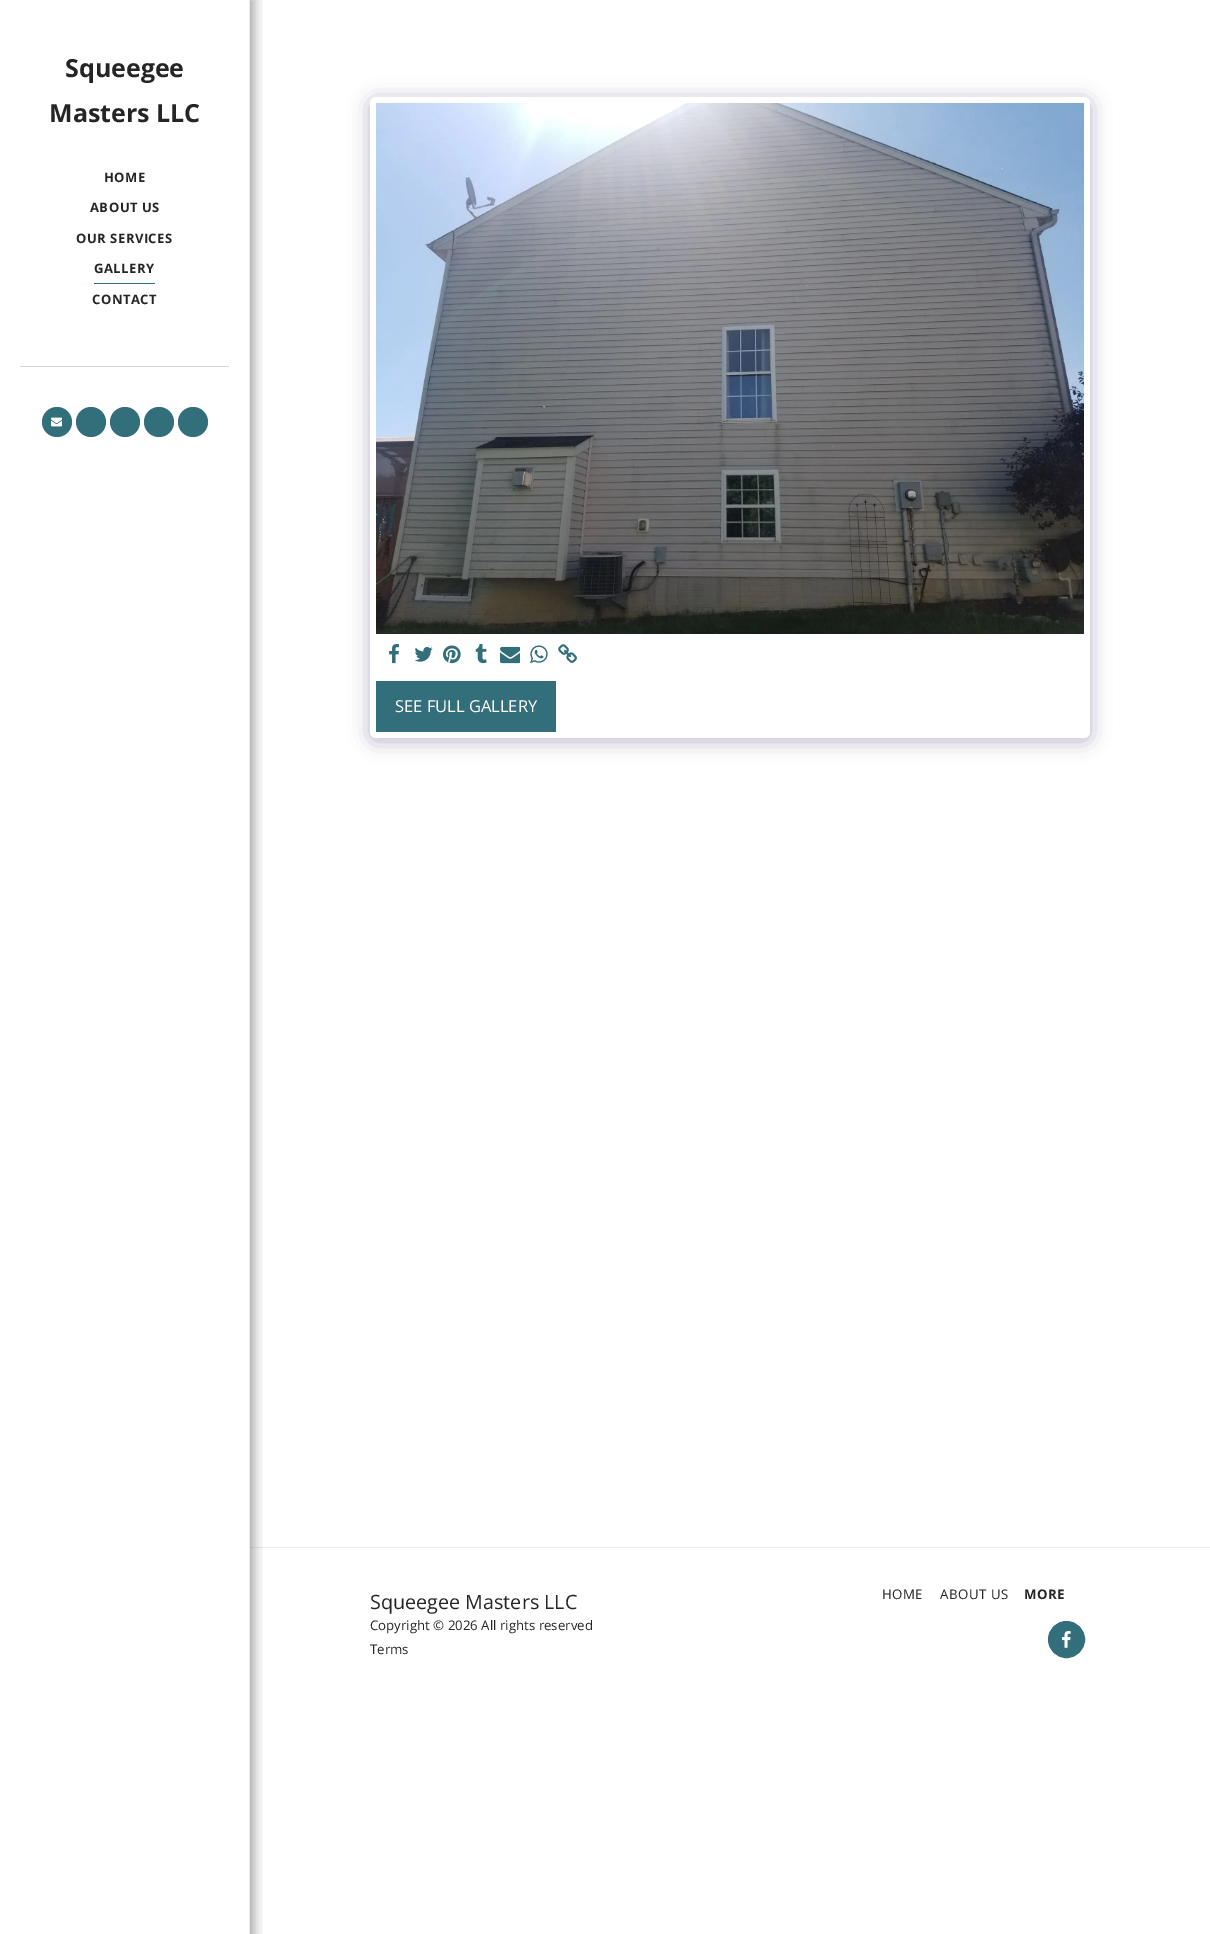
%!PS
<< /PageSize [1210 1934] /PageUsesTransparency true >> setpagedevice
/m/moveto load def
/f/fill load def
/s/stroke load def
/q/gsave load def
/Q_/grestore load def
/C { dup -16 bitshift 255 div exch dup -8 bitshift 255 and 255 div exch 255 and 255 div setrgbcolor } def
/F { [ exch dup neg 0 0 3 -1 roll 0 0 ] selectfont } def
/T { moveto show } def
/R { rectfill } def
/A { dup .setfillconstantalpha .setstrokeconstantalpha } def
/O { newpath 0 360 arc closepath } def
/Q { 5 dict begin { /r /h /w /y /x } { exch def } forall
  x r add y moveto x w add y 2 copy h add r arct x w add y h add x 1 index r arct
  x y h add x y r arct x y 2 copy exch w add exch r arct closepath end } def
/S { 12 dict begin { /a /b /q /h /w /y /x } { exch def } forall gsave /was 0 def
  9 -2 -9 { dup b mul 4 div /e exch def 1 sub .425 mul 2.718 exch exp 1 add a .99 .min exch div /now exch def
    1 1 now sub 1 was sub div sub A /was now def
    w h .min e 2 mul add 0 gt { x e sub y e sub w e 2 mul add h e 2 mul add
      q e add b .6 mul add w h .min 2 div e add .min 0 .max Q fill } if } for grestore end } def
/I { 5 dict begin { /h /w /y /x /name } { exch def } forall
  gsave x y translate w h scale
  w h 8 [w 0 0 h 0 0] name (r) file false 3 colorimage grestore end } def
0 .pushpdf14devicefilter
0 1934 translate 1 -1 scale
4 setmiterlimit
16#FFFFFF C
0 0 1210 1934 R
16#EBEBEB C
250 1547 960 1 R
q
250 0 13 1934 rectclip
16#000000 C
0 -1 254 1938 0 6 .35 S
Q_
249 0 1 1934 R
/OpenSans-Bold 25 F
16#252525 C
(Squeegee) 65 77 T
(Masters LLC) 49 122 T
/OpenSans-Bold 13 F
104 182 m .5 0 (HOME) ashow
90 212 m .5 0 (ABOUT US) ashow
76 243 m .5 0 (OUR SERVICES) ashow
16#336E7B C
94 283 61 1 R
16#252525 C
94 273 m .5 0 (GALLERY) ashow
92 304 m .5 0 (CONTACT) ashow
16#D3D3D3 C
20 366 209 1 R
16#336E7B C
57 422 15 O f
(1.rgb) 51 417 11 10 I
91 422 15 O f
125 422 15 O f
159 422 15 O f
193 422 15 O f
16#4D3F7A C
370 100 720 641 6 10 .4 S
16#FFFFFF C
370 97 720 641 6 Q f
(2.rgb) 376 103 708 531 I
(3.rgb) 389 644 11 20 I
(4.rgb) 414 647 19 15 I
(5.rgb) 443 645 18 19 I
(6.rgb) 475 644 12 20 I
(7.rgb) 500 646 20 18 I
(8.rgb) 530 645 18 19 I
(9.rgb) 558 644 19 19 I
16#336E7B C
376 681 180 51 R
/OpenSans-Regular 16.5 F
16#FFFFFF C
(SEE FULL GALLERY) 395 712 T
/OpenSans-Regular 19.75 F
16#252525 C
(Squeegee Masters LLC) 370 1609 T
/OpenSans-Regular 13.25 F
(Copyright © 2026 All rights reserved) 370 1630 T
(Terms) 370 1654 T
882 1599 m .5 0 (HOME) ashow
940 1599 m .5 0 (ABOUT US) ashow
/OpenSans-Bold 13.25 F
1024 1599 m .5 0 (MORE) ashow
16#336E7B C
1066.5 1639.5 18 O q f Q_
s
(10.rgb) 1061 1631 10 17 I
.poppdf14devicefilter showpage
